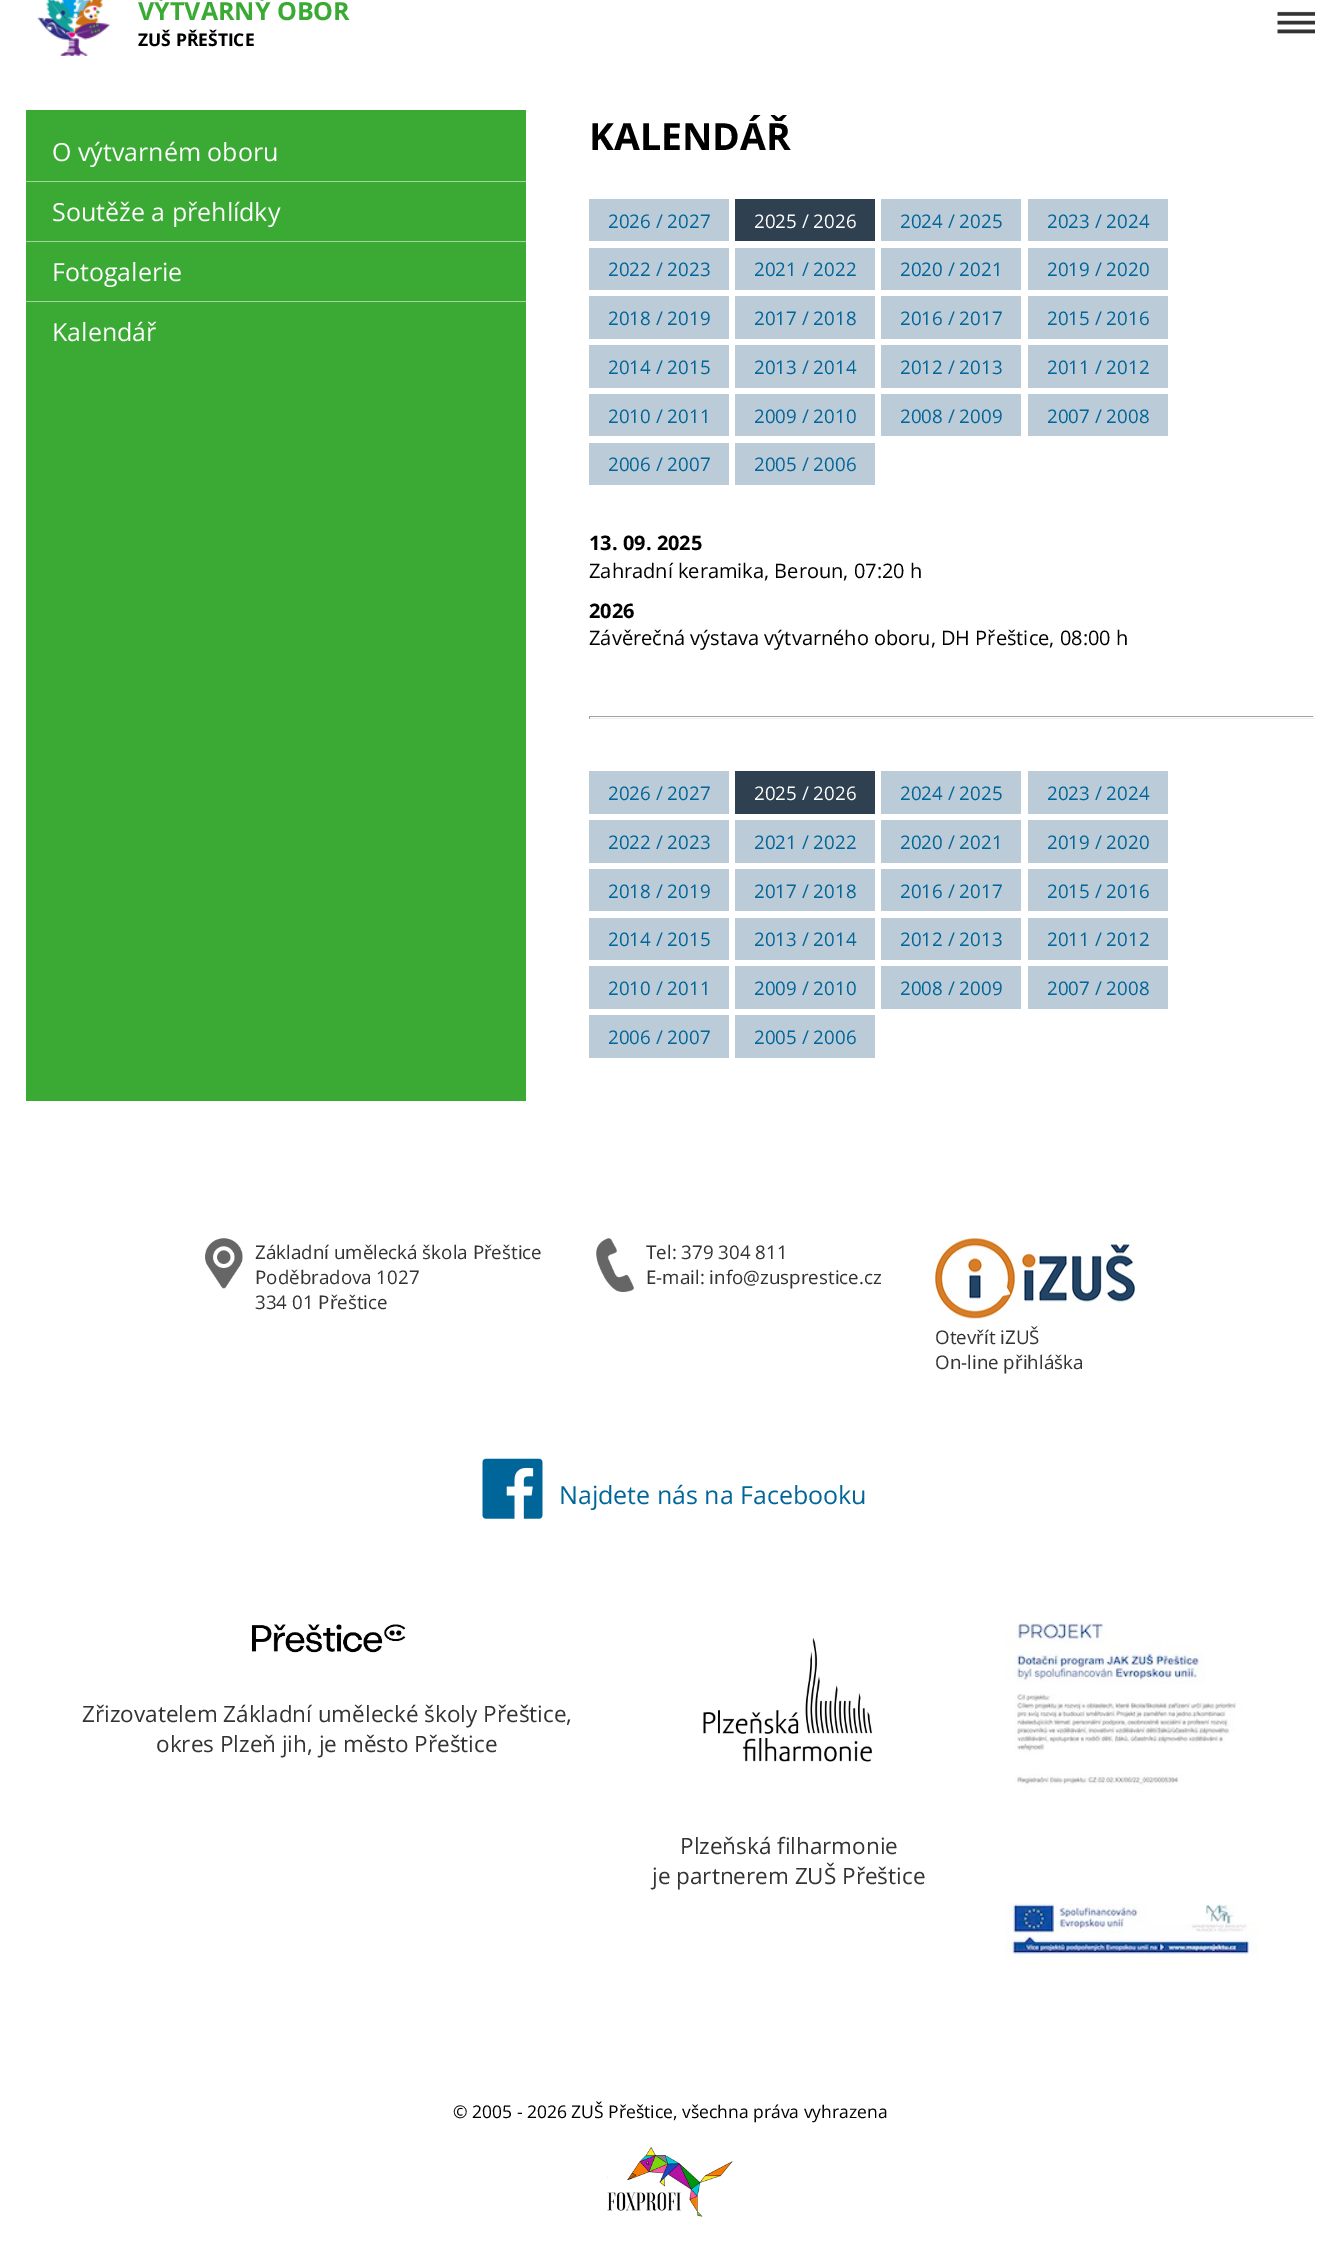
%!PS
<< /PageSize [1340 2246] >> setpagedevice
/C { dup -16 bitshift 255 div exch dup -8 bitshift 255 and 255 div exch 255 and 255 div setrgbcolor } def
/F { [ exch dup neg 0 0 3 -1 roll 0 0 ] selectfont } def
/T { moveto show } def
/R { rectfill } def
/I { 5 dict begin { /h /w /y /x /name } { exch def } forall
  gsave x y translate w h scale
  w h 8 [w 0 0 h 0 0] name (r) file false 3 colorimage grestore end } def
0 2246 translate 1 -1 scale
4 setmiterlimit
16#FFFFFF C
0 0 1340 2246 R
(1.rgb) 37 0 74 56 I
/OpenSans-Bold 25 F
16#3AAA35 C
(VÝTVARNÝ OBOR) 138 20 T
/OpenSans-Bold 17.5 F
16#000000 C
(ZUŠ PŘEŠTICE) 138 46 T
(2.rgb) 1277 11 38 23 I
16#3AAA35 C
26 110 500 991 R
16#9DD59A C
26 181 500 1 R
/OpenSans-Regular 25 F
16#FFFFFF C
(O výtvarném oboru) 52 161 T
16#9DD59A C
26 241 500 1 R
16#FFFFFF C
(Soutěže a přehlídky) 52 221 T
16#9DD59A C
26 301 500 1 R
16#FFFFFF C
(Fotogalerie) 52 281 T
(Kalendář) 52 341 T
/OpenSans-Bold 37.5 F
16#000000 C
(KALENDÁŘ) 589 150 T
16#BCCBD8 C
589 199 140 42 R
/OpenSans-Regular 18.75 F
16#006699 C
(2026 / 2027) 608 228 T
16#2F4050 C
735 199 140 42 R
16#FFFFFF C
(2025 / 2026) 754 228 T
16#BCCBD8 C
881 199 140 42 R
16#006699 C
(2024 / 2025) 900 228 T
16#BCCBD8 C
1028 199 140 42 R
16#006699 C
(2023 / 2024) 1047 228 T
16#BCCBD8 C
589 248 140 42 R
16#006699 C
(2022 / 2023) 608 276 T
16#BCCBD8 C
735 248 140 42 R
16#006699 C
(2021 / 2022) 754 276 T
16#BCCBD8 C
881 248 140 42 R
16#006699 C
(2020 / 2021) 900 276 T
16#BCCBD8 C
1028 248 140 42 R
16#006699 C
(2019 / 2020) 1047 276 T
16#BCCBD8 C
589 296 140 43 R
16#006699 C
(2018 / 2019) 608 325 T
16#BCCBD8 C
735 296 140 43 R
16#006699 C
(2017 / 2018) 754 325 T
16#BCCBD8 C
881 296 140 43 R
16#006699 C
(2016 / 2017) 900 325 T
16#BCCBD8 C
1028 296 140 43 R
16#006699 C
(2015 / 2016) 1047 325 T
16#BCCBD8 C
589 345 140 43 R
16#006699 C
(2014 / 2015) 608 374 T
16#BCCBD8 C
735 345 140 43 R
16#006699 C
(2013 / 2014) 754 374 T
16#BCCBD8 C
881 345 140 43 R
16#006699 C
(2012 / 2013) 900 374 T
16#BCCBD8 C
1028 345 140 43 R
16#006699 C
(2011 / 2012) 1047 374 T
16#BCCBD8 C
589 394 140 42 R
16#006699 C
(2010 / 2011) 608 423 T
16#BCCBD8 C
735 394 140 42 R
16#006699 C
(2009 / 2010) 754 423 T
16#BCCBD8 C
881 394 140 42 R
16#006699 C
(2008 / 2009) 900 423 T
16#BCCBD8 C
1028 394 140 42 R
16#006699 C
(2007 / 2008) 1047 423 T
16#BCCBD8 C
589 443 140 42 R
16#006699 C
(2006 / 2007) 608 471 T
16#BCCBD8 C
735 443 140 42 R
16#006699 C
(2005 / 2006) 754 471 T
/OpenSans-Bold 20 F
16#000000 C
(13. 09. 2025) 589 550 T
/OpenSans-Regular 20 F
(Zahradní keramika, Beroun, 07:20 h) 589 578 T
/OpenSans-Bold 20 F
(2026) 589 618 T
/OpenSans-Regular 20 F
(Závěrečná výstava výtvarného oboru, DH Přeštice, 08:00 h) 589 645 T
16#9F9F9F C
589 716 725 1 R
16#EEEEEE C
1313 716 1 3 R
589 718 725 1 R
16#9F9F9F C
589 716 1 3 R
16#BCCBD8 C
589 771 140 43 R
/OpenSans-Regular 18.75 F
16#006699 C
(2026 / 2027) 608 800 T
16#2F4050 C
735 771 140 43 R
16#FFFFFF C
(2025 / 2026) 754 800 T
16#BCCBD8 C
881 771 140 43 R
16#006699 C
(2024 / 2025) 900 800 T
16#BCCBD8 C
1028 771 140 43 R
16#006699 C
(2023 / 2024) 1047 800 T
16#BCCBD8 C
589 820 140 43 R
16#006699 C
(2022 / 2023) 608 849 T
16#BCCBD8 C
735 820 140 43 R
16#006699 C
(2021 / 2022) 754 849 T
16#BCCBD8 C
881 820 140 43 R
16#006699 C
(2020 / 2021) 900 849 T
16#BCCBD8 C
1028 820 140 43 R
16#006699 C
(2019 / 2020) 1047 849 T
16#BCCBD8 C
589 869 140 42 R
16#006699 C
(2018 / 2019) 608 898 T
16#BCCBD8 C
735 869 140 42 R
16#006699 C
(2017 / 2018) 754 898 T
16#BCCBD8 C
881 869 140 42 R
16#006699 C
(2016 / 2017) 900 898 T
16#BCCBD8 C
1028 869 140 42 R
16#006699 C
(2015 / 2016) 1047 898 T
16#BCCBD8 C
589 918 140 42 R
16#006699 C
(2014 / 2015) 608 946 T
16#BCCBD8 C
735 918 140 42 R
16#006699 C
(2013 / 2014) 754 946 T
16#BCCBD8 C
881 918 140 42 R
16#006699 C
(2012 / 2013) 900 946 T
16#BCCBD8 C
1028 918 140 42 R
16#006699 C
(2011 / 2012) 1047 946 T
16#BCCBD8 C
589 966 140 43 R
16#006699 C
(2010 / 2011) 608 995 T
16#BCCBD8 C
735 966 140 43 R
16#006699 C
(2009 / 2010) 754 995 T
16#BCCBD8 C
881 966 140 43 R
16#006699 C
(2008 / 2009) 900 995 T
16#BCCBD8 C
1028 966 140 43 R
16#006699 C
(2007 / 2008) 1047 995 T
16#BCCBD8 C
589 1015 140 43 R
16#006699 C
(2006 / 2007) 608 1044 T
16#BCCBD8 C
735 1015 140 43 R
16#006699 C
(2005 / 2006) 754 1044 T
(3.rgb) 205 1238 38 51 I
16#333333 C
(Základní umělecká škola Přeštice) 255 1259 T
(Poděbradova 1027) 255 1284 T
(334 01 Přeštice) 255 1309 T
(4.rgb) 596 1238 38 54 I
(Tel: 379 304 811) 646 1259 T
(E-mail: info@zusprestice.cz) 646 1284 T
(5.rgb) 935 1238 200 81 I
(Otevřít iZUŠ) 935 1344 T
(On-line přihláška) 935 1369 T
(6.rgb) 482 1458 61 61 I
/OpenSans-Regular 25 F
16#006699 C
(Najdete nás na Facebooku) 559 1504 T
(7.rgb) 251 1624 155 29 I
/OpenSans-Regular 22.5 F
16#333333 C
(Zřizovatelem Základní umělecké školy Přeštice,) 82 1722 T
(okres Plzeň jih, je město Přeštice) 156 1752 T
(8.rgb) 1005 1622 253 338 I
(9.rgb) 703 1637 170 125 I
(Plzeňská filharmonie) 680 1854 T
(je partnerem ZUŠ Přeštice) 652 1884 T
/OpenSans-Regular 17.5 F
16#000000 C
(© 2005 - 2026 ZUŠ Přeštice, všechna práva vyhrazena) 453 2118 T
(10.rgb) 607 2147 126 70 I
showpage
